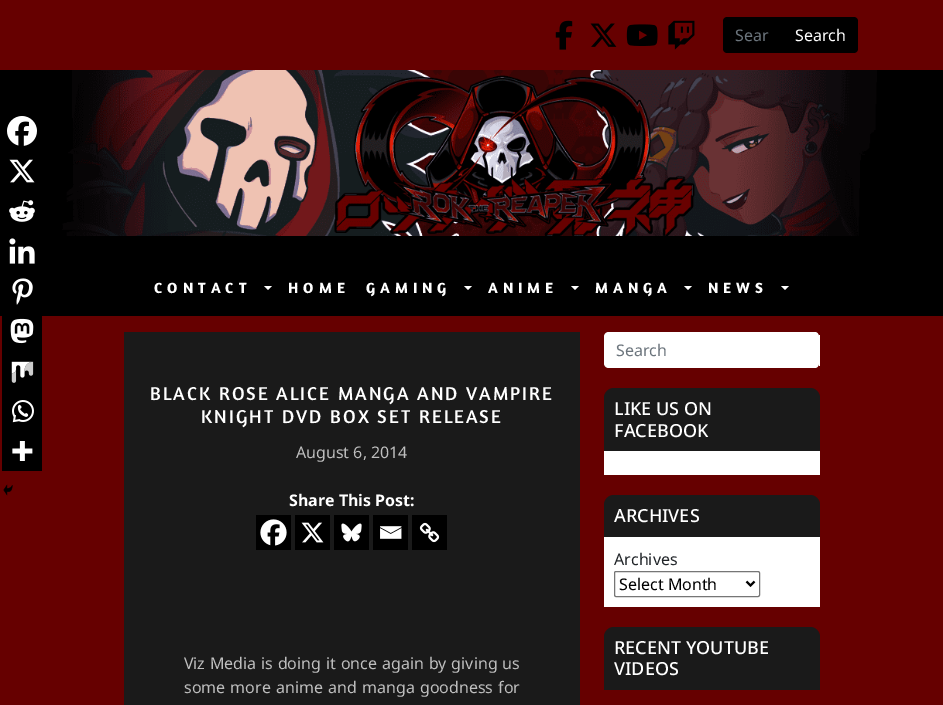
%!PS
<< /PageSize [943 705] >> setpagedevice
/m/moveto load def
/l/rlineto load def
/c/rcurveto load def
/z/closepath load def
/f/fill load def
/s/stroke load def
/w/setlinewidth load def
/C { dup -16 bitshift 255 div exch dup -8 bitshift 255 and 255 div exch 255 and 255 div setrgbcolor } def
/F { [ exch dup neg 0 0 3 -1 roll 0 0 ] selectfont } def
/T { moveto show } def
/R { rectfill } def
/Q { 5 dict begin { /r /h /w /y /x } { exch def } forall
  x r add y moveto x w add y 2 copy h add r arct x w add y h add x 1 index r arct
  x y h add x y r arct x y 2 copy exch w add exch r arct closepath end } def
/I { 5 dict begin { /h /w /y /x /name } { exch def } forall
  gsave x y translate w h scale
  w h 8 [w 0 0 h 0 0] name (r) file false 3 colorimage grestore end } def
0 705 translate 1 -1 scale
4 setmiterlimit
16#660000 C
0 0 943 705 R
(1.rgb) 555 20 18 30 I
(2.rgb) 590 23 27 24 I
(3.rgb) 626 24 32 22 I
(4.rgb) 668 20 27 30 I
16#000000 C
727 17 m 56 0 l 0 36 l -56 0 l -2 0 -4 -2 -4 -4 c 0 -28 l 0 -2 2 -4 4 -4 c z f
/NotoSans-Regular 16 F
16#6C757D C
(Sear) 735 41 T
16#000000 C
783 17 m 71 0 l 2 0 4 2 4 4 c 0 28 l 0 2 -2 4 -4 4 c -71 0 l z f
16#FFFFFF C
(Search) 795 41 T
16#000000 C
0 70 943 246 R
(5.rgb) 62 70 815 166 I
/Amaranth-Bold 15 F
16#FFFFFF C
154 293 m 5 0 (CONTACT) ashow
264 286 m 8 0 l -4 4 l z f
288 293 m 5 0 (HOME) ashow
366 293 m 5 0 (GAMING) ashow
464 286 m 8 0 l -4 4 l z f
488 293 m 5 0 (ANIME) ashow
571 286 m 8 0 l -4 4 l z f
595 293 m 5 0 (MANGA) ashow
684 286 m 8 0 l -4 4 l z f
708 293 m 5 0 (NEWS) ashow
781 286 m 8 0 l -4 4 l z f
16#1A1A1A C
124 332 456 373 R
/Amaranth-Regular 19 F
16#FFFFFF C
150 400 m 2 0 (BLACK ROSE ALICE MANGA AND VAMPIRE) ashow
201 423 m 2 0 (KNIGHT DVD BOX SET RELEASE) ashow
/NotoSans-Regular 16 F
16#BEBEBE C
(August 6, 2014) 296 458 T
/NotoSans-Bold 16 F
16#FFFFFF C
(Share This Post:) 289 506 T
16#000000 C
256 515 35 35 R
(6.rgb) 260 519 27 27 I
295 515 35 35 R
(7.rgb) 301 522 23 21 I
334 515 35 35 R
(8.rgb) 341 523 21 19 I
373 515 35 35 R
(9.rgb) 380 526 22 13 I
412 515 35 35 R
(10.rgb) 419 522 21 21 I
(11.rgb) 7 116 30 30 I
(12.rgb) 9 159 26 24 I
(13.rgb) 9 200 26 22 I
(14.rgb) 9 238 26 26 I
(15.rgb) 12 278 21 27 I
2 316 40 155 R
(16.rgb) 10 318 24 26 I
(17.rgb) 11 361 23 22 I
(18.rgb) 12 400 22 23 I
(19.rgb) 12 441 21 20 I
(20.rgb) 3 484 10 12 I
/NotoSans-Regular 16 F
16#BEBEBE C
(V) 184 669 T
193 669 m .75 0 32 (iz Media is doing it once again by giving us) widthshow
184 693 m 1 0 32 (some more anime and manga goodness for) widthshow
16#FFFFFF C
609 332 m 206 0 l 2 0 4 2 4 5 c 0 26 l 0 3 -2 5 -4 5 c -206 0 l -3 0 -5 -2 -5 -5 c 0 -26 l 0 -3 2 -5 5 -5 c z f
819 335 1 31 R
16#6C757D C
(Search) 616 356 T
16#1A1A1A C
614 388 m 196 0 l 5.5 0 10 4.5 10 10 c 0 53 l -216 0 l 0 -53 l 0 -5.5 4.5 -10 10 -10 c z f
/NotoSans-Medium 18 F
16#FFFFFF C
(LIKE US ON) 614 415 T
(FACEBOOK) 614 437 T
604 451 216 24 R
16#1A1A1A C
614 495 m 196 0 l 5.5 0 10 4.5 10 10 c 0 32 l -216 0 l 0 -32 l 0 -5.5 4.5 -10 10 -10 c z f
16#FFFFFF C
(ARCHIVES) 614 522 T
604 537 216 70 R
/NotoSans-Regular 16 F
16#212529 C
(Archives) 614 565 T
16#767676 C
614.5 571.5 145 25 1.5 Q s
16#000000 C
2 w
746.5 581.5 m 4 4 l 4 -4 l s
(Select Month) 619 590 T
16#1A1A1A C
614 627 m 196 0 l 5.5 0 10 4.5 10 10 c 0 53 l -216 0 l 0 -53 l 0 -5.5 4.5 -10 10 -10 c z f
/NotoSans-Medium 18 F
16#FFFFFF C
(RECENT YOUTUBE) 614 654 T
(VIDEOS) 614 675 T
showpage
